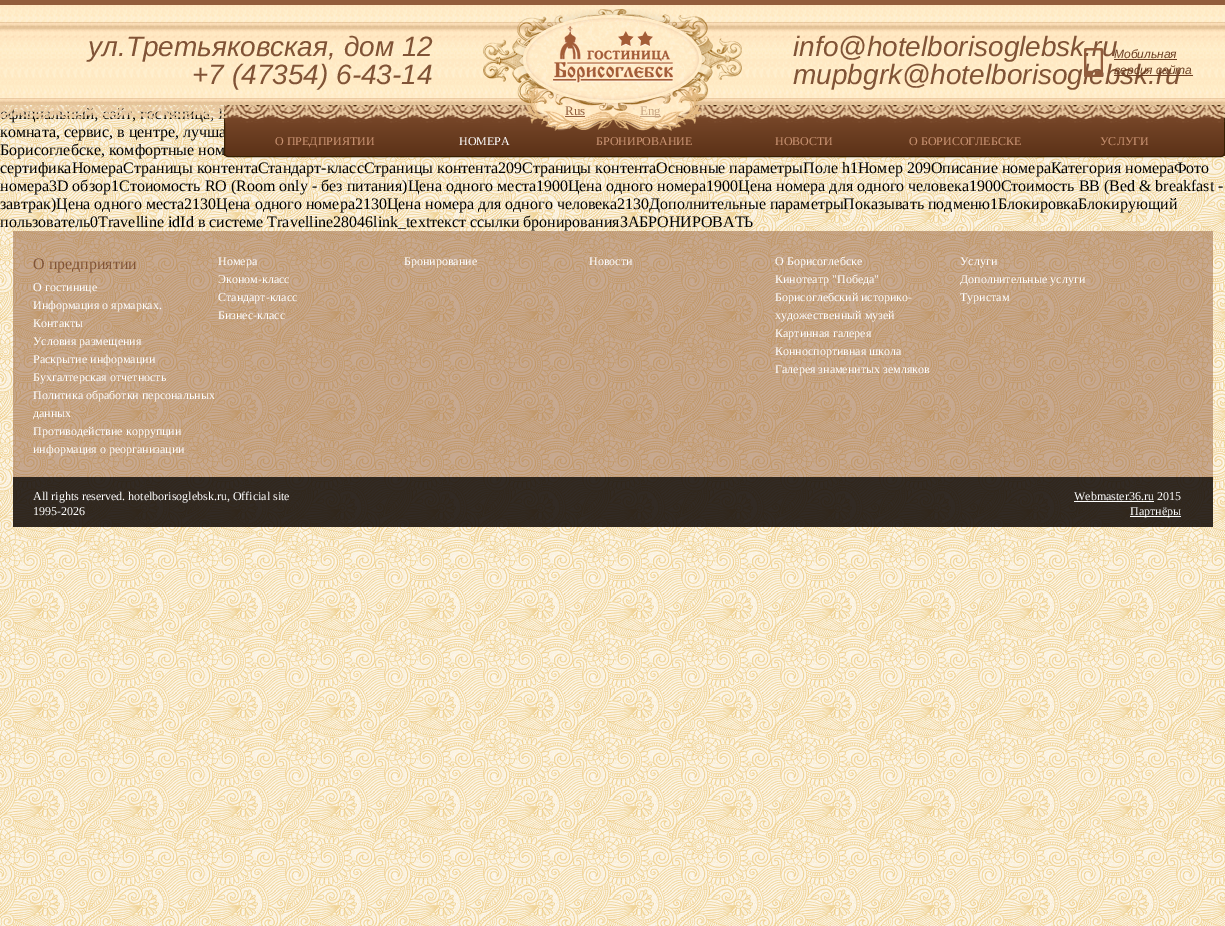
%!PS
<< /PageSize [1225 926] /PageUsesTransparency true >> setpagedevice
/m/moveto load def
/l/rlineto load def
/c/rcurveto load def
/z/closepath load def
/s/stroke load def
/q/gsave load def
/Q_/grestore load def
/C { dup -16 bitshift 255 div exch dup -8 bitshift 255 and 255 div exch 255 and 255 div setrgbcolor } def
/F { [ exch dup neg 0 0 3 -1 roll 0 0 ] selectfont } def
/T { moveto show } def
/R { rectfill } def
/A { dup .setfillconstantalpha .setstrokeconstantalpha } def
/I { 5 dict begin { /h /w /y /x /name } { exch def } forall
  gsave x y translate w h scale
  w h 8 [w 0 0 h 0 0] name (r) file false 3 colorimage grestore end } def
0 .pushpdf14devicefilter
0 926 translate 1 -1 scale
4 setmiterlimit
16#FFFFFF C
0 0 1225 926 R
(1.rgb) 0 105 1225 821 I
16#925D3C C
0 0 1225 5 R
(2.rgb) 0 5 1225 100 I
/LiberationSans-Italic 28 F
16#805336 C
(ул.Третьяковская, дом 12) 88 56 T
(+7 \(47354\) 6-43-14) 192 84 T
/LiberationSerif-Regular 16 F
16#000000 C
(комната, сервис, в центре, лучша) 0 137 T
(Борисоглебске, комфортные ном) 0 155 T
q
224 105 m 1001 0 l 0 48 l 0 2 -2 4 -4 4 c -993 0 l -2 0 -4 -2 -4 -4 c z clip newpath
q 224 106 m 1001 0 l 0 50 l -1001 0 l z clip newpath
<< /ShadingType 2 /ColorSpace /DeviceRGB /Coords [725 106 725 156] /Extend [true true] /Function << /FunctionType 2 /Domain [0 1] /C0 [.494 .298 .176] /C1 [.361 .196 .094] /N 1 >> >> shfill Q_
Q_
16#371F02 C
224.5 105.5 m 1000 0 l 0 47.5 l 0 2 -1.5 3.5 -3.5 3.5 c -993 0 l -2 0 -3.5 -1.5 -3.5 -3.5 c z s
16#000000 C
(,) 94 119 T
(,) 132 119 T
(5.rgb) 0 105 1225 18 I
(3.rgb) 483 9 259 122 I
/LiberationSans-Italic 28 F
16#805336 C
(info@hotelborisoglebsk.ru) 793 56 T
(mupbgrk@hotelborisoglebsk.ru) 793 84 T
(4.rgb) 1084 48 19 29 I
/LiberationSans-Italic 12 F
16#6A3D21 C
(Мобильная) 1114 58 T
1114 59 63 1 R
1114 75 79 1 R
(версия сайта) 1114 74 T
/LiberationSerif-Regular 13 F
16#925D3C C
(Rus) 565 115 T
565 116 20 1 R
0.5 A
640 116 21 1 R
1 A
16#C7A380 C
(Eng) 640 115 T
/LiberationSerif-Regular 12 F
16#C99271 C
(О ПРЕДПРИЯТИИ) 275 145 T
16#FFFFFF C
(НОМЕРА) 459 145 T
16#C99271 C
(БРОНИРОВАНИЕ) 596 145 T
(НОВОСТИ) 775 145 T
(О БОРИСОГЛЕБСКЕ) 909 145 T
(УСЛУГИ) 1100 145 T
/LiberationSerif-Regular 16 F
16#000000 C
(сертификаНомераСтраницы контентаСтандарт-классСтраницы контента209Страницы контентаОсновные параметрыПоле h1Номер 209Описание номераКатегория номераФото) 0 173 T
(номера3D обзор1Стоиомость RO \(Room only - без питания\)Цена одного места1900Цена одного номера1900Цена номера для одного человека1900Стоимость BB \(Bed & breakfast -) 0 191 T
(завтрак\)Цена одного места2130Цена одного номера2130Цена номера для одного человека2130Дополнительные параметрыПоказывать подменю1БлокировкаБлокирующий) 0 209 T
(пользователь0Travelline idId в системе Travelline28046link_textтекст ссылки бронированияЗАБРОНИРОВАТЬ) 0 227 T
0.5 A
16#935E3D C
13 231 1200 296 R
1 A
16#805336 C
(О предприятии) 33 269 T
/LiberationSerif-Regular 12 F
16#FFFFFF C
(О гостинице) 33 291 T
(Информация о ярмарках.) 33 309 T
(Контакты) 33 327 T
(Условия размещения) 33 345 T
(Раскрытие информации) 33 363 T
(Бухгалтерская отчетность) 33 381 T
(Политика обработки персональных) 33 399 T
(данных) 33 417 T
(Противодействие коррупции) 33 435 T
(информация о реорганизации) 33 453 T
(Номера) 218 265 T
(Эконом-класс) 218 283 T
(Стандарт-класс) 218 301 T
(Бизнес-класс) 218 319 T
(Бронирование) 404 265 T
(Новости) 589 265 T
(О Борисоглебске) 775 265 T
(Кинотеатр "Победа") 775 283 T
(Борисоглебский историко-) 775 301 T
(художественный музей) 775 319 T
(Картинная галерея) 775 337 T
(Конноспортивная школа) 775 355 T
(Галерея знаменитых земляков) 775 373 T
(Услуги) 960 265 T
(Дополнительные услуги) 960 283 T
(Туристам) 960 301 T
0.75 A
16#000000 C
13 477 1200 50 R
1 A
16#FFFFFF C
(All rights reserved. hotelborisoglebsk.ru, Official site) 33 500 T
(1995-2026) 33 515 T
(Webmaster36.ru 2015) 1074 500 T
1074 501 80 1 R
1130 516 51 1 R
(Партнёры) 1130 515 T
.poppdf14devicefilter showpage
